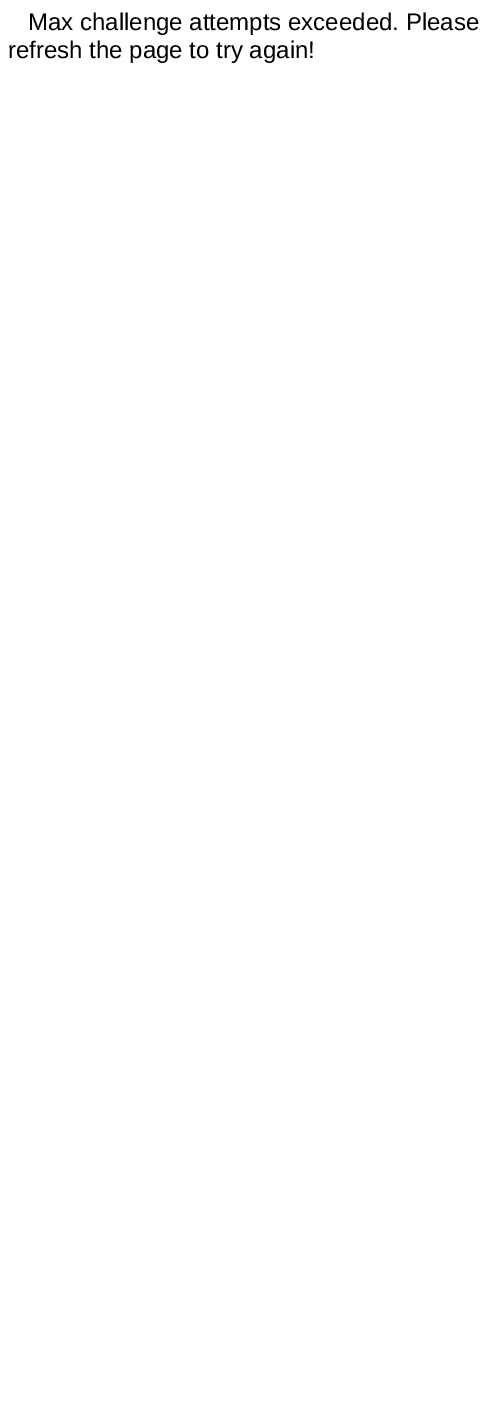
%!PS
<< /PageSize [503 1414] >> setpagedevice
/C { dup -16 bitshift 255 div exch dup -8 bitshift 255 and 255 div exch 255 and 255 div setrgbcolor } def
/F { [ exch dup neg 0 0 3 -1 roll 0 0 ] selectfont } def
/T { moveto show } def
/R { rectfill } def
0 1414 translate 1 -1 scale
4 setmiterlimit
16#FFFFFF C
0 0 503 1414 R
/LiberationSans-Regular 24 F
16#000000 C
(Max challenge attempts exceeded. Please) 28 30 T
(refresh the page to try again!) 8 58 T
showpage
